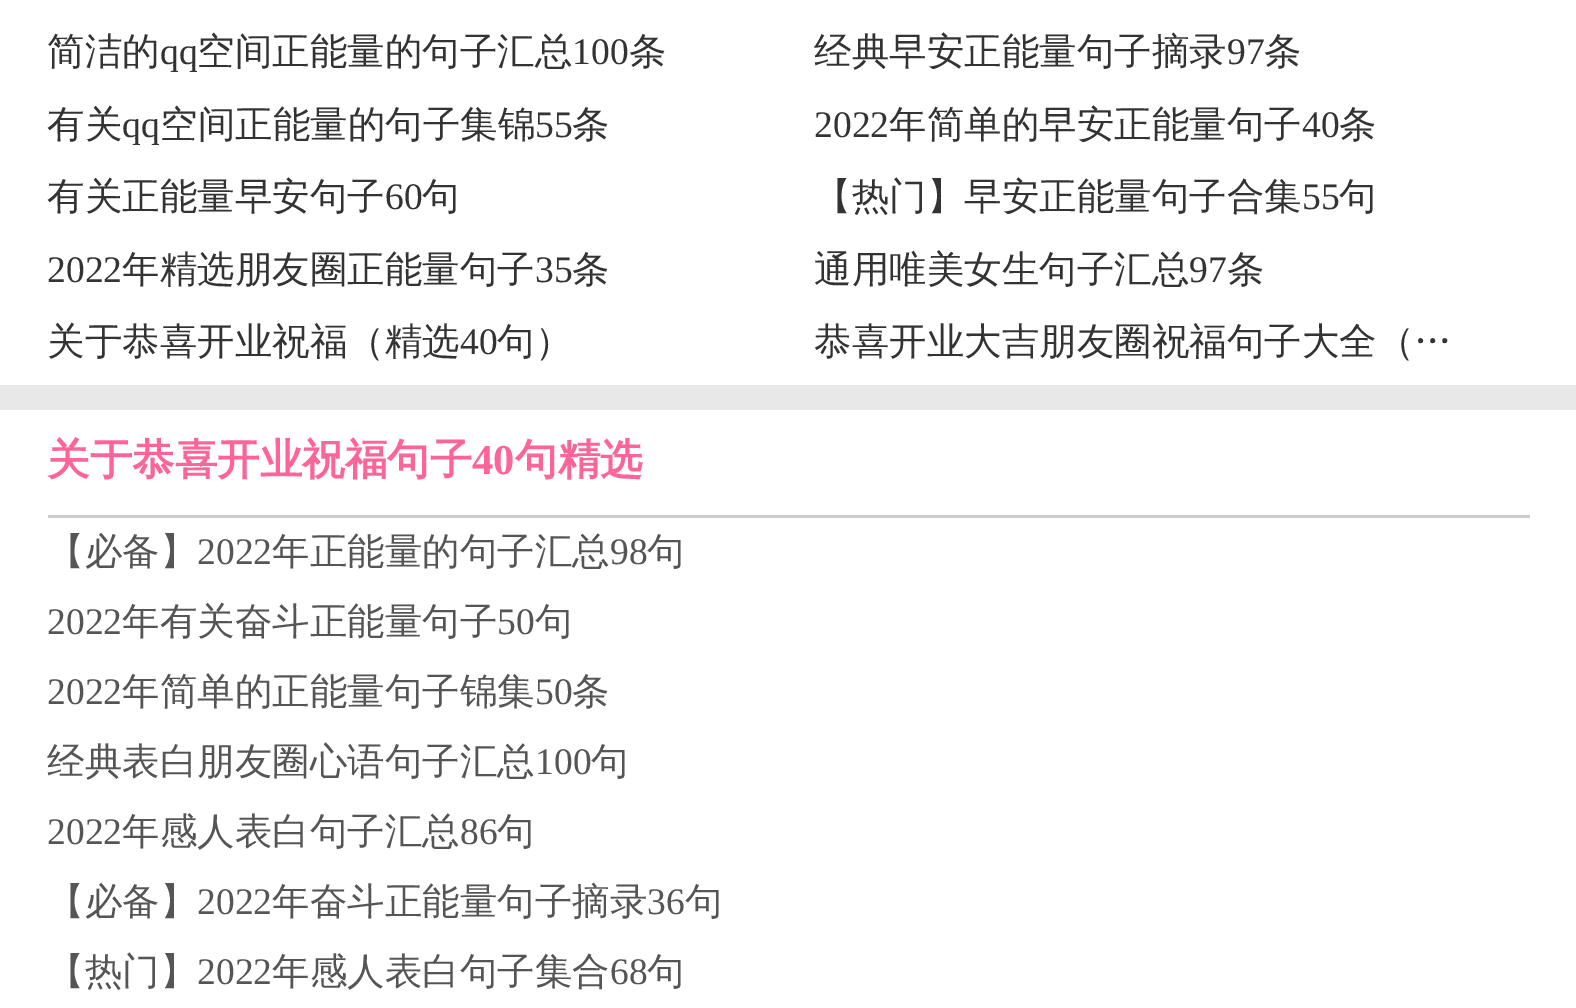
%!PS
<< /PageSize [1576 1008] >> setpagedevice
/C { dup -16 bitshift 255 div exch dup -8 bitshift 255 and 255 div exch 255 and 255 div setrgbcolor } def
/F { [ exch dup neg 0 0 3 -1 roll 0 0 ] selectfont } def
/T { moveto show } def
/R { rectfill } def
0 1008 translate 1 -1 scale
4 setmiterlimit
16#FFFFFF C
0 0 1576 1008 R
/WenQuanYiZenHei-Medium 37.5 F
16#333333 C
(简洁的) 47 64 T
/LiberationSerif-Regular 37.5 F
(qq) 160 64 T
/WenQuanYiZenHei-Medium 37.5 F
(空间正能量的句子汇总) 197 64 T
/LiberationSerif-Regular 37.5 F
(100) 572 64 T
/WenQuanYiZenHei-Medium 37.5 F
(条) 629 64 T
(经典早安正能量句子摘录) 814 64 T
/LiberationSerif-Regular 37.5 F
(97) 1227 64 T
/WenQuanYiZenHei-Medium 37.5 F
(条) 1264 64 T
(有关) 47 137 T
/LiberationSerif-Regular 37.5 F
(qq) 122 137 T
/WenQuanYiZenHei-Medium 37.5 F
(空间正能量的句子集锦) 160 137 T
/LiberationSerif-Regular 37.5 F
(55) 535 137 T
/WenQuanYiZenHei-Medium 37.5 F
(条) 572 137 T
/LiberationSerif-Regular 37.5 F
(2022) 814 137 T
/WenQuanYiZenHei-Medium 37.5 F
(年简单的早安正能量句子) 889 137 T
/LiberationSerif-Regular 37.5 F
(40) 1302 137 T
/WenQuanYiZenHei-Medium 37.5 F
(条) 1339 137 T
(有关正能量早安句子) 47 209 T
/LiberationSerif-Regular 37.5 F
(60) 385 209 T
/WenQuanYiZenHei-Medium 37.5 F
(句) 422 209 T
(【热门】早安正能量句子合集) 814 209 T
/LiberationSerif-Regular 37.5 F
(55) 1302 209 T
/WenQuanYiZenHei-Medium 37.5 F
(句) 1339 209 T
/LiberationSerif-Regular 37.5 F
(2022) 47 282 T
/WenQuanYiZenHei-Medium 37.5 F
(年精选朋友圈正能量句子) 122 282 T
/LiberationSerif-Regular 37.5 F
(35) 535 282 T
/WenQuanYiZenHei-Medium 37.5 F
(条) 572 282 T
(通用唯美女生句子汇总) 814 282 T
/LiberationSerif-Regular 37.5 F
(97) 1189 282 T
/WenQuanYiZenHei-Medium 37.5 F
(条) 1227 282 T
(关于恭喜开业祝福（精选) 47 354 T
/LiberationSerif-Regular 37.5 F
(40) 460 354 T
/WenQuanYiZenHei-Medium 37.5 F
(句）) 497 354 T
(恭喜开业大吉朋友圈祝福句子大全（…) 814 354 T
16#E8E8E8 C
0 385 1576 25 R
16#CCCCCC C
48 515 1482 3 R
/WenQuanYiZenHei-Bold 42.5 F
16#FD6598 C
(关于恭喜开业祝福句子) 47 474 T
/LiberationSerif-Bold 42.5 F
(40) 472 474 T
/WenQuanYiZenHei-Bold 42.5 F
(句精选) 515 474 T
/WenQuanYiZenHei-Medium 37.5 F
16#555555 C
(【必备】) 47 564 T
/LiberationSerif-Regular 37.5 F
(2022) 197 564 T
/WenQuanYiZenHei-Medium 37.5 F
(年正能量的句子汇总) 272 564 T
/LiberationSerif-Regular 37.5 F
(98) 610 564 T
/WenQuanYiZenHei-Medium 37.5 F
(句) 647 564 T
/LiberationSerif-Regular 37.5 F
(2022) 47 634 T
/WenQuanYiZenHei-Medium 37.5 F
(年有关奋斗正能量句子) 122 634 T
/LiberationSerif-Regular 37.5 F
(50) 497 634 T
/WenQuanYiZenHei-Medium 37.5 F
(句) 535 634 T
/LiberationSerif-Regular 37.5 F
(2022) 47 704 T
/WenQuanYiZenHei-Medium 37.5 F
(年简单的正能量句子锦集) 122 704 T
/LiberationSerif-Regular 37.5 F
(50) 535 704 T
/WenQuanYiZenHei-Medium 37.5 F
(条) 572 704 T
(经典表白朋友圈心语句子汇总) 47 774 T
/LiberationSerif-Regular 37.5 F
(100) 535 774 T
/WenQuanYiZenHei-Medium 37.5 F
(句) 591 774 T
/LiberationSerif-Regular 37.5 F
(2022) 47 844 T
/WenQuanYiZenHei-Medium 37.5 F
(年感人表白句子汇总) 122 844 T
/LiberationSerif-Regular 37.5 F
(86) 460 844 T
/WenQuanYiZenHei-Medium 37.5 F
(句) 497 844 T
(【必备】) 47 914 T
/LiberationSerif-Regular 37.5 F
(2022) 197 914 T
/WenQuanYiZenHei-Medium 37.5 F
(年奋斗正能量句子摘录) 272 914 T
/LiberationSerif-Regular 37.5 F
(36) 647 914 T
/WenQuanYiZenHei-Medium 37.5 F
(句) 685 914 T
(【热门】) 47 984 T
/LiberationSerif-Regular 37.5 F
(2022) 197 984 T
/WenQuanYiZenHei-Medium 37.5 F
(年感人表白句子集合) 272 984 T
/LiberationSerif-Regular 37.5 F
(68) 610 984 T
/WenQuanYiZenHei-Medium 37.5 F
(句) 647 984 T
showpage
